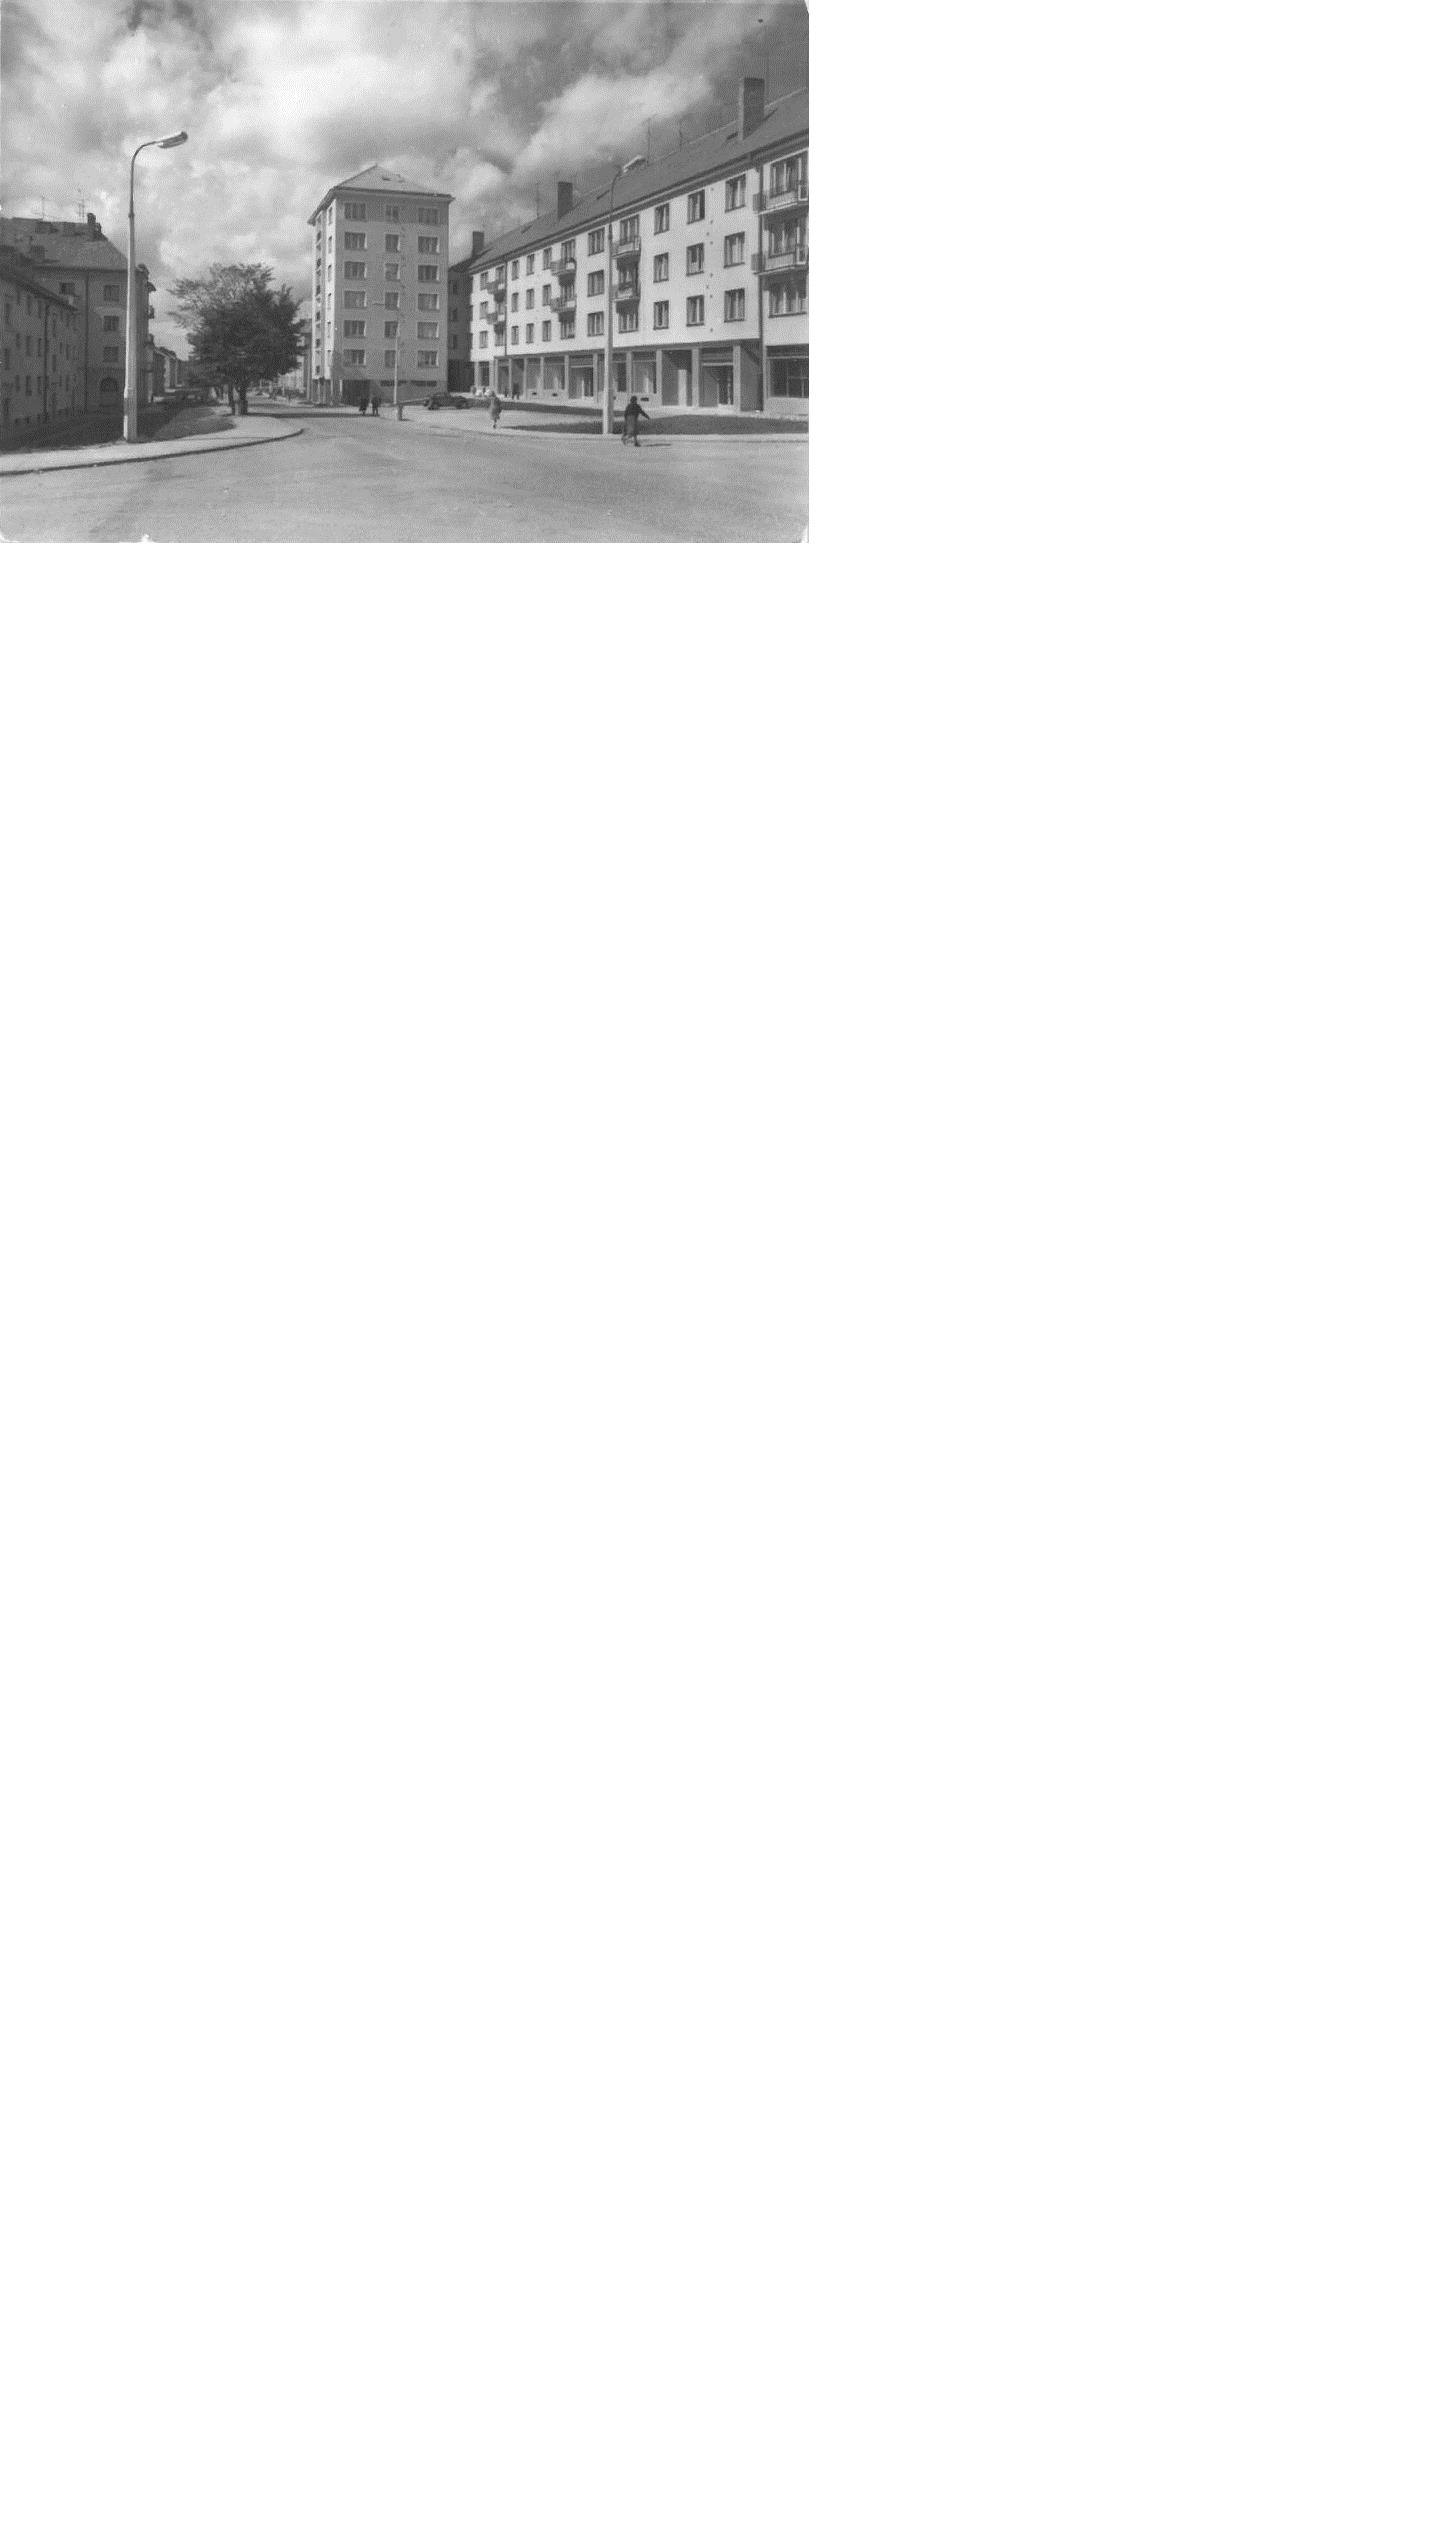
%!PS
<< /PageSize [1432 2522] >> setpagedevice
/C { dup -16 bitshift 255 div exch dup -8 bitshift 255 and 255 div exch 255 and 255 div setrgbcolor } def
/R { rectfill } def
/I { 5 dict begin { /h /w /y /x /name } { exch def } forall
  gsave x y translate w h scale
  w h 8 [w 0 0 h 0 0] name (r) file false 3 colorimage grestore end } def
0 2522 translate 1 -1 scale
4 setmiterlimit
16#FFFFFF C
0 0 1432 2522 R
(1.rgb) 0 0 809 543 I
showpage
